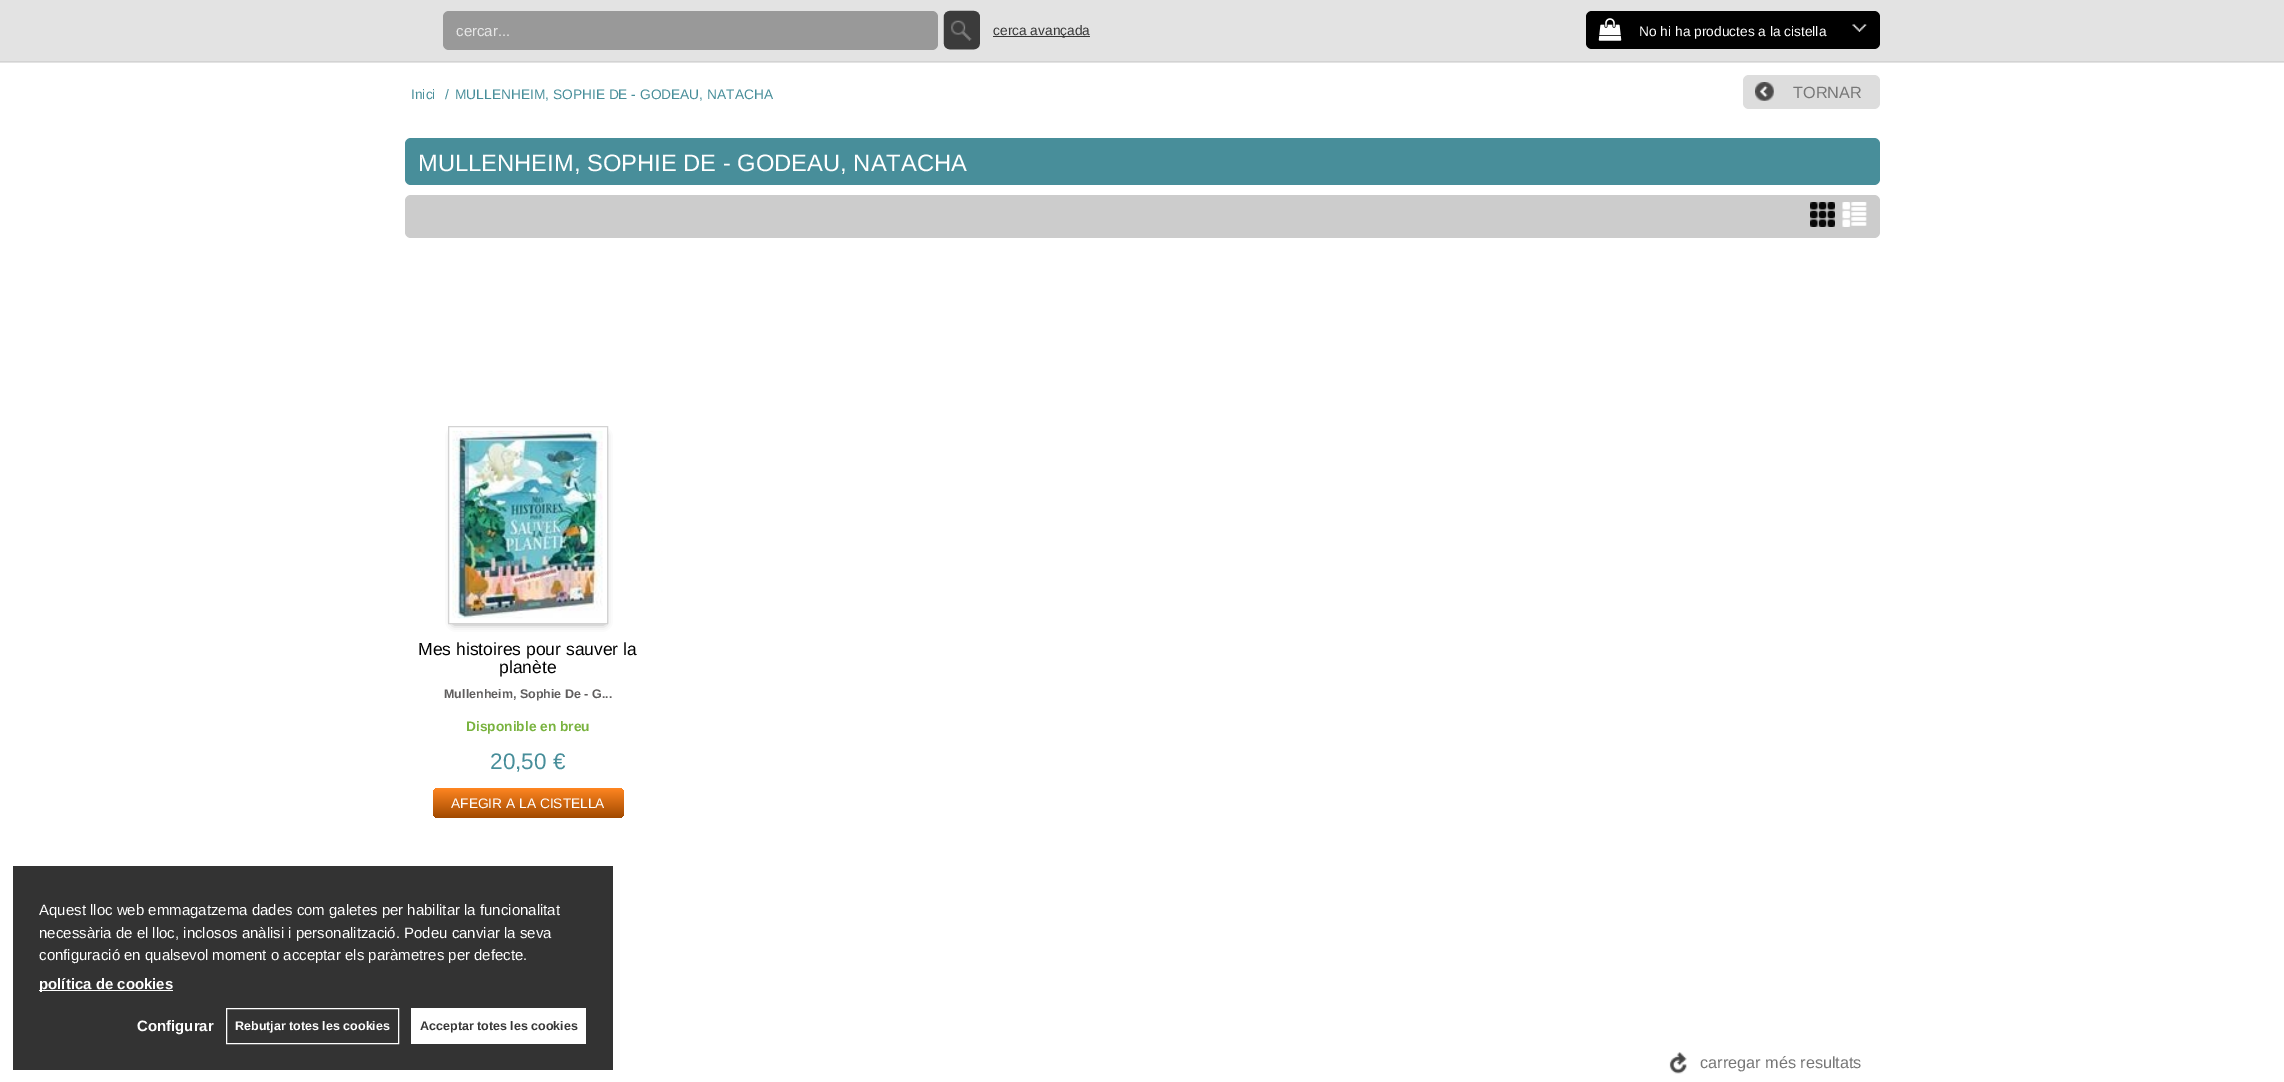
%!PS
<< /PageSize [2284 1082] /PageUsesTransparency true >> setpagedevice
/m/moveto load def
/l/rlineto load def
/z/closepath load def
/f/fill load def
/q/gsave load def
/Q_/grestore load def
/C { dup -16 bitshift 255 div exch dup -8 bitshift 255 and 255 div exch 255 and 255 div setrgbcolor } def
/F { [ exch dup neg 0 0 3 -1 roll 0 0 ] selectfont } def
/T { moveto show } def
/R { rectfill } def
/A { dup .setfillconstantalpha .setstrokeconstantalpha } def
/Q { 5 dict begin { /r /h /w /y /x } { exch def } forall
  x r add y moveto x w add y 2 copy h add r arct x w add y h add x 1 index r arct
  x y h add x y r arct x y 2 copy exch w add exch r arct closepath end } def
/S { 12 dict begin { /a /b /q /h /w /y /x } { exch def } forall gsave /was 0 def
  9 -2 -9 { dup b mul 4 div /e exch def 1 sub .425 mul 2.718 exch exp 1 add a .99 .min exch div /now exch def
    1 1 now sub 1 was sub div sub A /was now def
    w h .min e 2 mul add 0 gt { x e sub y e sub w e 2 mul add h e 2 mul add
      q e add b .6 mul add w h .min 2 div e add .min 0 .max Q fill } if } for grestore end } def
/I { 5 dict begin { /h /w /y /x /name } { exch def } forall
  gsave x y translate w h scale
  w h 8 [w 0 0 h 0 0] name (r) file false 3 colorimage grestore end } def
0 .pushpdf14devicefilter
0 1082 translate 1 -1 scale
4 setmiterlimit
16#FFFFFF C
0 0 2284 1082 R
16#E3E3E3 C
0 0 2284 63 R
16#D3D3D3 C
0 61 2284 1 R
16#999999 C
443 11 495 39 6 Q f
/LiberationSans-Regular 15 F
16#E6E6E6 C
(cercar...) 456 36 T
(1.rgb) 943 10 37 40 I
16#363636 C
993 36 97 1 R
/LiberationSans-Regular 13.75 F
(cerca avançada) 993 35 T
16#000000 C
1586 11 294 38 6 Q f
(2.rgb) 1598 18 24 23 I
16#FFFFFF C
(No hi ha productes a la cistella) 1639 36 T
(3.rgb) 1852 24 15 8 I
16#333333 C
13 866 600 204 R
/LiberationSans-Regular 15 F
16#FFFFFF C
(Aquest lloc web emmagatzema dades com galetes per habilitar la funcionalitat) 39 915 T
(necessària de el lloc, inclosos anàlisi i personalització. Podeu canviar la seva) 39 938 T
(configuració en qualsevol moment o acceptar els paràmetres per defecte.) 39 960 T
39 990 134 1 R
/LiberationSans-Bold 15 F
(política de cookies) 39 989 T
(Configurar) 137 1031 T
226.5 1008.5 172 35 rectstroke
/LiberationSans-Bold 12.5 F
(Rebutjar totes les cookies) 235 1030 T
411 1008 175 36 R
16#363636 C
(Acceptar totes les cookies) 420 1030 T
/LiberationSans-Regular 13.75 F
16#488E9A C
(Inici) 411 99 T
(/) 445 99 T
(MULLENHEIM, SOPHIE DE - GODEAU, NATACHA) 455 99 T
16#DDDDDD C
1743 75 137 34 6 Q f
(4.rgb) 1755 82 19 19 I
/LiberationSans-Regular 16.25 F
16#777777 C
(TORNAR) 1793 98 T
16#488E9A C
405 138 1475 47 6 Q f
/LiberationSans-Regular 23.75 F
16#FFFFFF C
(MULLENHEIM, SOPHIE DE - GODEAU, NATACHA) 418 171 T
16#CCCCCC C
405 195 1475 43 6 Q f
(5.rgb) 1810 202 25 25 I
(6.rgb) 1842 202 25 25 I
q
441 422 m 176 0 l 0 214 l -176 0 l z 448 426 m 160 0 l 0 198 l -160 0 l z eoclip newpath
16#000000 C
454 435 150 188 0 4 .5 S
Q_
16#D3D3D3 C
448.5 426.5 159 197 rectstroke
(7.rgb) 452 430 151 189 I
/LiberationSans-Regular 17.5 F
16#000000 C
(Mes histoires pour sauver la) 418 655 T
(planète) 499 673 T
/LiberationSans-Bold 12.5 F
16#5F5D5D C
(Mullenheim, Sophie De - G...) 444 698 T
/LiberationSans-Bold 13.75 F
16#79B33F C
(Disponible en breu) 466 731 T
/LiberationSans-Regular 22.5 F
16#488E9A C
(20,50 €) 490 769 T
q 433 788 191 30 6 Q clip newpath
<< /ShadingType 2 /ColorSpace /DeviceRGB /Coords [528 788 528 818] /Extend [true true] /Function << /FunctionType 2 /Domain [0 1] /C0 [1 .525 .129] /C1 [.631 .286 0] /N 1 >> >> shfill Q_
/LiberationSans-Regular 13.75 F
16#FFFFFF C
(AFEGIR A LA CISTELLA) 451 808 T
(8.rgb) 1669 1052 18 22 I
/LiberationSans-Regular 16.25 F
16#777777 C
(carregar més resultats) 1700 1068 T
.poppdf14devicefilter showpage
